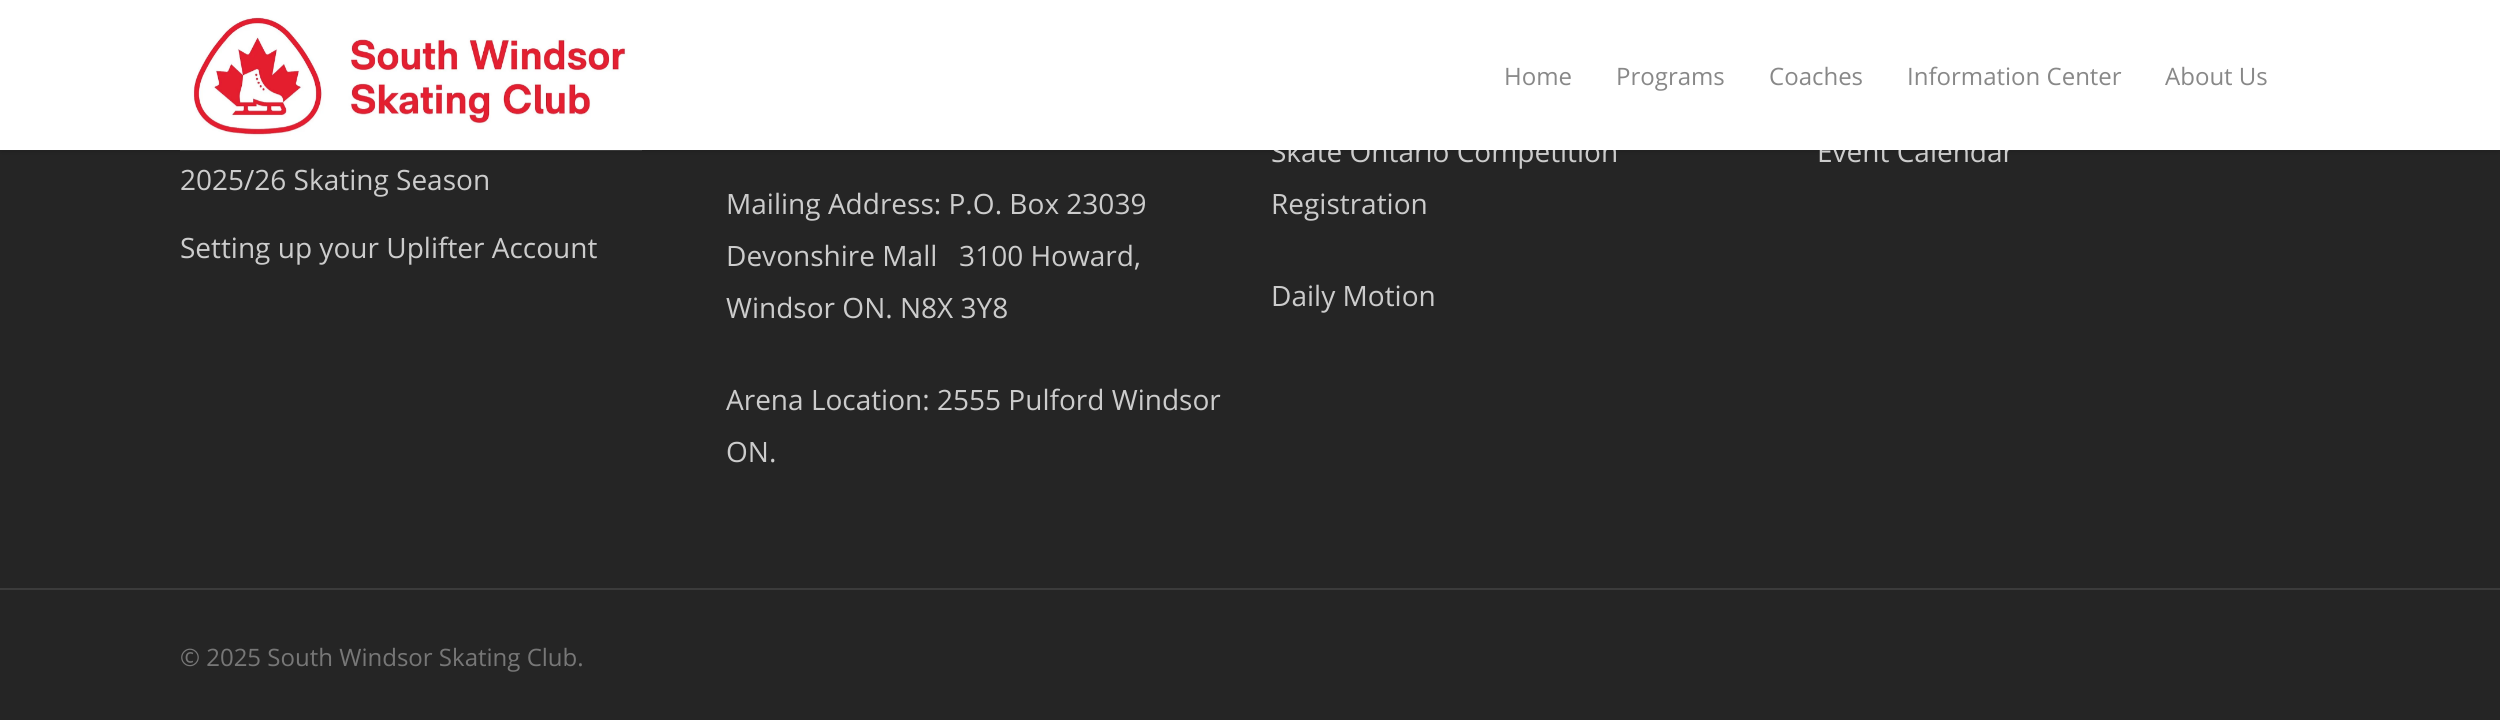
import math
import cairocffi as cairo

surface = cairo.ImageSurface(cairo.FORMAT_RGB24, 2500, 720)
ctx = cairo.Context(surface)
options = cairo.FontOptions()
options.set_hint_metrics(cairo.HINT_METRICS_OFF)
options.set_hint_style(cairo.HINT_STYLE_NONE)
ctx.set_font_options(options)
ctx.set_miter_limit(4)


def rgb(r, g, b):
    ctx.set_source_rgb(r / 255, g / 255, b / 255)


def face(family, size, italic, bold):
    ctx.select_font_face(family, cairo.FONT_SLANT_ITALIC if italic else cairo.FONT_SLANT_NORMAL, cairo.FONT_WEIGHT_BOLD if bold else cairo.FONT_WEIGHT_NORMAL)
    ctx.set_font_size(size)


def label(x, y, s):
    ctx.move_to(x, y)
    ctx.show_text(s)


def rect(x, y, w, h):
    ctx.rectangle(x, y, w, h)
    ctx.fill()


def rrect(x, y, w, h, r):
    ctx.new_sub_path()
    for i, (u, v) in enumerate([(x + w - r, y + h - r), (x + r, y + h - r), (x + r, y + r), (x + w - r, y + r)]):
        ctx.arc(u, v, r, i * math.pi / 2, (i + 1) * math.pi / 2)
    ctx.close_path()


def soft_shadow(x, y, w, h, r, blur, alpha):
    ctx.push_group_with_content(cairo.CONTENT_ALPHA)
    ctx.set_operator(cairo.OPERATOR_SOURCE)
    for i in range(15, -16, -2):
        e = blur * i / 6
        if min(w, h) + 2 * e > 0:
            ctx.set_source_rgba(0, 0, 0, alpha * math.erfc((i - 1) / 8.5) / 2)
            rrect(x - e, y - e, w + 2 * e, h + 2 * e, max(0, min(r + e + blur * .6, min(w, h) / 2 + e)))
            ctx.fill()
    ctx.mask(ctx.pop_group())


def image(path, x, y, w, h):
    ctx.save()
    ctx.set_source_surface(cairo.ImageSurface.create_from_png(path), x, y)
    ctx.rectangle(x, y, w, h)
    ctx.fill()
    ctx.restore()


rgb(37, 37, 37)
ctx.paint()
rgb(0, 0, 0)
soft_shadow(0, 0, 2500, 150, 0, 3, 0.22)
face('Open Sans', 28, 0, 0)
rgb(204, 204, 204)
label(1271, 162, 'Skate Ontario Competition')
label(1817, 162, 'Event Calendar')
rgb(255, 255, 255)
rect(0, 0, 2500, 150)
image('image0.png', 180, 17, 462, 134)
face('Open Sans', 24, 0, 0)
rgb(136, 136, 136)
label(1504, 85, 'Home')
label(1616, 85, 'Programs')
label(1769, 85, 'Coaches')
label(1907, 85, 'Information Center')
label(2165, 85, 'About Us')
face('Open Sans', 28, 0, 0)
rgb(204, 204, 204)
label(1271, 214, 'Registration')
label(1271, 306, 'Daily Motion')
label(180, 190, '2025/26 Skating Season')
label(180, 258, 'Setting up your Uplifter Account')
label(726, 214, 'Mailing Address: P.O. Box 23039')
label(726, 266, 'Devonshire Mall   3100 Howard,')
label(726, 318, 'Windsor ON. N8X 3Y8')
label(726, 410, 'Arena Location: 2555 Pulford Windsor')
label(726, 462, 'ON.')
rgb(59, 59, 59)
rect(0, 588, 2500, 2)
face('Open Sans', 24, 0, 0)
rgb(119, 119, 119)
label(180, 666, '© 2025 South Windsor Skating Club.')
surface.write_to_png('render.png')
